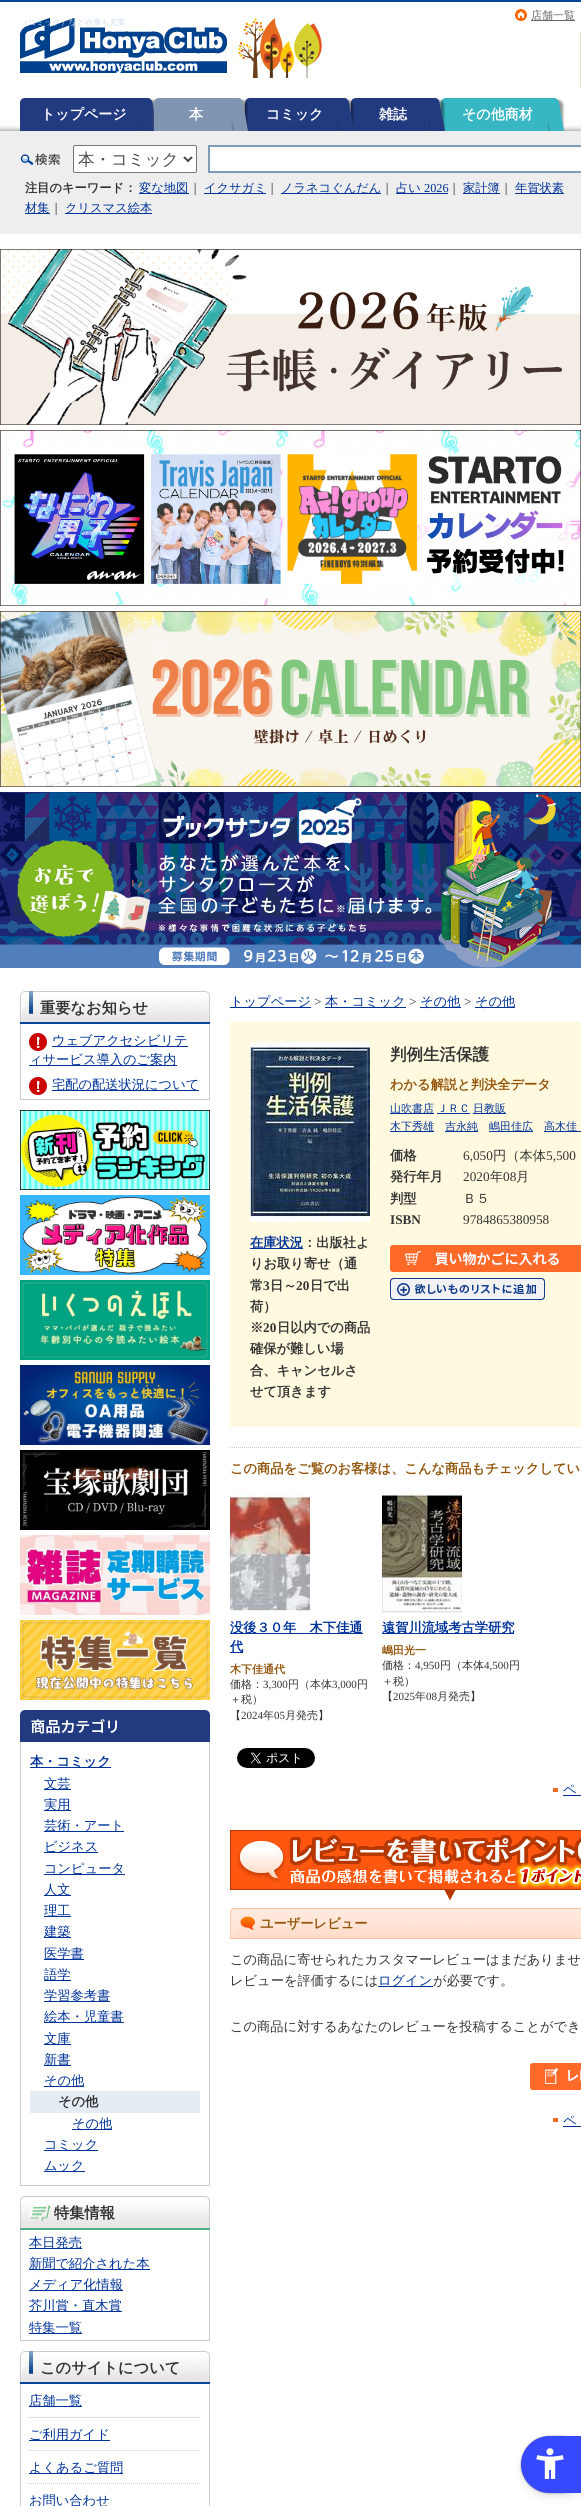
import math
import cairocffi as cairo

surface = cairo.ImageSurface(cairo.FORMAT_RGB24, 581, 2506)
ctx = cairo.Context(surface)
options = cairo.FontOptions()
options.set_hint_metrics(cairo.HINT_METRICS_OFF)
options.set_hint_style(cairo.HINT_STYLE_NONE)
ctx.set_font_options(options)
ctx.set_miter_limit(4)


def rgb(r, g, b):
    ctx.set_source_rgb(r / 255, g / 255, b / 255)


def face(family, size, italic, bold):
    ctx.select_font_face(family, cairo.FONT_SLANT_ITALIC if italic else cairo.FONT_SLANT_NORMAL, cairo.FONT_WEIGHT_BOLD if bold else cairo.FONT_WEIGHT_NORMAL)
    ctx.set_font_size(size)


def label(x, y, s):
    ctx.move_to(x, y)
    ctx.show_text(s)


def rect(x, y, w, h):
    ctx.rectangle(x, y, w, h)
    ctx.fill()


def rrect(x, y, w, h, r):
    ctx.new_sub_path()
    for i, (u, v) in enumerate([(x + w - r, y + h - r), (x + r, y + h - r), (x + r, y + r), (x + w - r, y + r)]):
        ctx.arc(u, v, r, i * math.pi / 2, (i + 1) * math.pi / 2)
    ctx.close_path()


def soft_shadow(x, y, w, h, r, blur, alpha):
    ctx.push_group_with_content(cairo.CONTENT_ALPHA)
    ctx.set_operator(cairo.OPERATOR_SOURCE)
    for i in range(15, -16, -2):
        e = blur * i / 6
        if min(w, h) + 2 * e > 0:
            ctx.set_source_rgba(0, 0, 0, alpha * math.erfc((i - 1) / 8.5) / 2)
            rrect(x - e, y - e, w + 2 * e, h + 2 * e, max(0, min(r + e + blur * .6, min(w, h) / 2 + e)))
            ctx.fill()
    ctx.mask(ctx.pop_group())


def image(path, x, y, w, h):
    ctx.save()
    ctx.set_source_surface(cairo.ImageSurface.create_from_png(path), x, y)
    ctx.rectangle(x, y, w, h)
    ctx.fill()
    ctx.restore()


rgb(255, 255, 255)
ctx.paint()
rgb(0, 70, 151)
rect(0, 0, 581, 2)
image('image0.png', 515, 9, 12, 12)
rgb(102, 102, 102)
rect(531, 20, 44, 1)
face('WenQuanYi Zen Hei Medium', 11, 0, 0)
label(531, 19, '店舗一覧')
image('image1.png', 580, 32, 1, 56)
image('image2.png', 580, 30, 1, 2)
image('image3.png', 20, 18, 302, 60)
face('WenQuanYi Zen Hei Medium', 8, 0, 0)
rgb(207, 219, 234)
label(20, 25, '（コミック）など在庫も充実')
image('image4.png', 20, 991, 185, 31)
rgb(0, 70, 151)
rect(20, 1022, 190, 2)
image('image5.png', 205, 991, 5, 31)
face('WenQuanYi Zen Hei', 15.25, 0, 1)
rgb(51, 51, 51)
label(40, 1013, '重要なお知らせ')
rgb(204, 204, 204)
rect(209, 1024, 1, 76)
rect(20, 1099, 190, 1)
rect(20, 1024, 1, 76)
image('image6.png', 29, 1033, 18, 18)
rgb(0, 51, 153)
rect(52, 1046, 136, 1)
face('WenQuanYi Zen Hei Medium', 13.25, 0, 0)
label(52, 1045, 'ウェブアクセシビリテ')
rect(29, 1065, 148, 1)
label(29, 1064, 'ィサービス導入のご案内')
image('image6.png', 29, 1077, 18, 18)
rect(52, 1090, 147, 1)
label(52, 1089, '宅配の配送状況について')
image('image7.png', 20, 1110, 190, 80)
image('image8.png', 20, 1195, 190, 80)
image('image9.png', 20, 1280, 190, 80)
image('image10.png', 20, 1365, 190, 80)
image('image11.png', 20, 1450, 190, 80)
image('image12.png', 20, 1535, 190, 80)
image('image13.png', 20, 1620, 190, 80)
image('image14.png', 20, 1710, 190, 32)
rgb(204, 204, 204)
rect(209, 1742, 1, 444)
rect(20, 2185, 190, 1)
rect(20, 1742, 1, 444)
rgb(0, 51, 153)
rect(30, 1767, 81, 1)
face('WenQuanYi Zen Hei', 13.25, 0, 1)
label(30, 1766, '本・コミック')
rect(44, 1789, 27, 1)
face('WenQuanYi Zen Hei Medium', 13.25, 0, 0)
label(44, 1788, '文芸')
rect(44, 1810, 27, 1)
label(44, 1809, '実用')
rect(44, 1831, 80, 1)
label(44, 1830, '芸術・アート')
rect(44, 1852, 54, 1)
label(44, 1851, 'ビジネス')
rect(44, 1874, 81, 1)
label(44, 1873, 'コンピュータ')
rect(44, 1895, 27, 1)
label(44, 1894, '人文')
rect(44, 1916, 27, 1)
label(44, 1915, '理工')
rect(44, 1937, 27, 1)
label(44, 1936, '建築')
rect(44, 1959, 40, 1)
label(44, 1958, '医学書')
rect(44, 1980, 27, 1)
label(44, 1979, '語学')
rect(44, 2001, 66, 1)
label(44, 2000, '学習参考書')
rect(44, 2022, 80, 1)
label(44, 2021, '絵本・児童書')
rect(44, 2044, 27, 1)
label(44, 2043, '文庫')
rect(44, 2065, 27, 1)
label(44, 2064, '新書')
rect(44, 2086, 40, 1)
label(44, 2085, 'その他')
rgb(229, 236, 244)
rect(30, 2091, 170, 22)
face('WenQuanYi Zen Hei', 13.25, 0, 1)
rgb(51, 51, 51)
label(58, 2106, 'その他')
rgb(0, 51, 153)
rect(72, 2129, 40, 1)
face('WenQuanYi Zen Hei Medium', 13.25, 0, 0)
label(72, 2128, 'その他')
rect(44, 2150, 54, 1)
label(44, 2149, 'コミック')
rect(44, 2171, 41, 1)
label(44, 2170, 'ムック')
image('image15.png', 20, 2196, 185, 32)
rgb(83, 175, 134)
rect(20, 2228, 190, 2)
image('image16.png', 205, 2196, 5, 32)
face('WenQuanYi Zen Hei', 15.25, 0, 1)
rgb(51, 51, 51)
label(54, 2218, '特集情報')
rgb(204, 204, 204)
rect(209, 2230, 1, 111)
rect(20, 2340, 190, 1)
rect(20, 2230, 1, 111)
rgb(0, 51, 153)
rect(29, 2248, 53, 1)
face('WenQuanYi Zen Hei Medium', 13.25, 0, 0)
label(29, 2247, '本日発売')
rect(29, 2269, 121, 1)
label(29, 2268, '新聞で紹介された本')
rect(29, 2290, 94, 1)
label(29, 2289, 'メディア化情報')
rect(29, 2311, 93, 1)
label(29, 2310, '芥川賞・直木賞')
rect(29, 2333, 53, 1)
label(29, 2332, '特集一覧')
image('image4.png', 20, 2351, 185, 31)
rgb(0, 70, 151)
rect(20, 2382, 190, 2)
image('image5.png', 205, 2351, 5, 31)
face('WenQuanYi Zen Hei', 15.25, 0, 1)
rgb(51, 51, 51)
label(40, 2373, 'このサイトについて')
rgb(204, 204, 204)
rect(209, 2384, 1, 122)
rect(20, 2384, 1, 122)
image('image17.png', 29, 2417, 171, 1)
rgb(0, 51, 153)
rect(29, 2406, 53, 1)
face('WenQuanYi Zen Hei Medium', 13.25, 0, 0)
label(29, 2405, '店舗一覧')
image('image17.png', 29, 2450, 171, 1)
rect(29, 2440, 81, 1)
label(29, 2439, 'ご利用ガイド')
image('image17.png', 29, 2483, 171, 1)
rect(29, 2473, 94, 1)
label(29, 2472, 'よくあるご質問')
label(29, 2505, 'お問い合わせ')
rect(230, 1007, 81, 1)
label(230, 1006, 'トップページ')
face('Liberation Serif', 13.25, 0, 0)
rgb(51, 51, 51)
label(314, 1006, '>')
rgb(0, 51, 153)
rect(325, 1007, 81, 1)
face('WenQuanYi Zen Hei Medium', 13.25, 0, 0)
label(325, 1006, '本・コミック')
face('Liberation Serif', 13.25, 0, 0)
rgb(51, 51, 51)
label(409, 1006, '>')
rgb(0, 51, 153)
rect(420, 1007, 41, 1)
face('WenQuanYi Zen Hei Medium', 13.25, 0, 0)
label(420, 1006, 'その他')
face('Liberation Serif', 13.25, 0, 0)
rgb(51, 51, 51)
label(464, 1006, '>')
rgb(0, 51, 153)
rect(475, 1007, 40, 1)
face('WenQuanYi Zen Hei Medium', 13.25, 0, 0)
label(475, 1006, 'その他')
rgb(255, 249, 223)
rect(230, 1022, 351, 405)
face('WenQuanYi Zen Hei', 16.5, 0, 1)
rgb(51, 51, 51)
label(390, 1060, '判例生活保護')
face('WenQuanYi Zen Hei', 13.25, 0, 1)
rgb(146, 83, 8)
label(390, 1089, 'わかる解説と判決全データ')
rgb(0, 51, 153)
rect(390, 1113, 44, 1)
face('WenQuanYi Zen Hei Medium', 11, 0, 0)
label(390, 1112, '山吹書店')
label(437, 1112, 'ＪＲＣ')
rect(437, 1113, 33, 1)
rect(473, 1113, 33, 1)
label(473, 1112, '日教販')
rect(390, 1131, 44, 1)
label(390, 1130, '木下秀雄')
rect(445, 1131, 33, 1)
label(445, 1130, '吉永純')
rect(489, 1131, 44, 1)
label(489, 1130, '嶋田佳広')
rect(544, 1131, 37, 1)
label(544, 1130, '高木佳')
face('WenQuanYi Zen Hei', 13.25, 0, 1)
rgb(51, 51, 51)
label(390, 1160, '価格')
face('Liberation Serif', 13.25, 0, 0)
label(463, 1160, '6,050')
face('WenQuanYi Zen Hei Medium', 13.25, 0, 0)
label(493, 1160, '円（本体')
face('Liberation Serif', 13.25, 0, 0)
label(546, 1160, '5,500')
face('WenQuanYi Zen Hei', 13.25, 0, 1)
label(390, 1181, '発行年月')
face('Liberation Serif', 13.25, 0, 0)
label(463, 1181, '2020')
face('WenQuanYi Zen Hei Medium', 13.25, 0, 0)
label(490, 1181, '年')
face('Liberation Serif', 13.25, 0, 0)
label(503, 1181, '08')
face('WenQuanYi Zen Hei Medium', 13.25, 0, 0)
label(516, 1181, '月')
face('WenQuanYi Zen Hei', 13.25, 0, 1)
label(390, 1203, '判型')
face('WenQuanYi Zen Hei Medium', 13.25, 0, 0)
label(463, 1203, 'Ｂ５')
face('Liberation Serif', 13.25, 0, 1)
label(390, 1224, 'ISBN')
face('Liberation Serif', 13.25, 0, 0)
label(463, 1224, '9784865380958')
image('image18.png', 390, 1245, 191, 27)
image('image19.png', 390, 1278, 155, 22)
image('image20.png', 250, 1042, 120, 180)
rgb(0, 51, 153)
rect(250, 1248, 53, 1)
face('WenQuanYi Zen Hei', 13.25, 0, 1)
label(250, 1247, '在庫状況')
rgb(51, 51, 51)
label(303, 1247, '：出版社よ')
label(250, 1268, 'りお取り寄せ（通')
label(250, 1290, '常')
face('Liberation Serif', 13.25, 0, 1)
label(263, 1290, '3')
face('WenQuanYi Zen Hei', 13.25, 0, 1)
label(270, 1290, '日～')
face('Liberation Serif', 13.25, 0, 1)
label(296, 1290, '20')
face('WenQuanYi Zen Hei', 13.25, 0, 1)
label(310, 1290, '日で出')
label(250, 1311, '荷）')
label(250, 1332, '※')
face('Liberation Serif', 13.25, 0, 1)
label(263, 1332, '20')
face('WenQuanYi Zen Hei', 13.25, 0, 1)
label(277, 1332, '日以内での商品')
label(250, 1353, '確保が難しい場')
label(250, 1375, '合、キャンセルさ')
label(250, 1396, 'せて頂きます')
image('image21.png', 230, 1447, 351, 1)
rgb(146, 83, 8)
label(230, 1473, 'この商品をご覧のお客様は、こんな商品もチェックしてい')
image('image22.png', 230, 1494, 80, 120)
rgb(0, 51, 153)
rect(230, 1633, 133, 1)
label(230, 1632, '没後３０年　木下佳通')
rect(230, 1652, 13, 1)
label(230, 1651, '代')
face('WenQuanYi Zen Hei', 11, 0, 1)
rgb(146, 83, 8)
label(230, 1673, '木下佳通代')
face('WenQuanYi Zen Hei Medium', 11, 0, 0)
rgb(51, 51, 51)
label(230, 1688, '価格：')
face('Liberation Serif', 11, 0, 0)
label(263, 1688, '3,300')
face('WenQuanYi Zen Hei Medium', 11, 0, 0)
label(288, 1688, '円（本体')
face('Liberation Serif', 11, 0, 0)
label(332, 1688, '3,000')
face('WenQuanYi Zen Hei Medium', 11, 0, 0)
label(357, 1688, '円')
label(230, 1703, '＋税）')
label(230, 1719, '【')
face('Liberation Serif', 11, 0, 0)
label(241, 1719, '2024')
face('WenQuanYi Zen Hei Medium', 11, 0, 0)
label(263, 1719, '年')
face('Liberation Serif', 11, 0, 0)
label(274, 1719, '05')
face('WenQuanYi Zen Hei Medium', 11, 0, 0)
label(285, 1719, '月発売】')
image('image23.png', 382, 1494, 80, 120)
rgb(0, 51, 153)
rect(382, 1633, 132, 1)
face('WenQuanYi Zen Hei', 13.25, 0, 1)
label(382, 1632, '遠賀川流域考古学研究')
face('WenQuanYi Zen Hei', 11, 0, 1)
rgb(146, 83, 8)
label(382, 1654, '嶋田光一')
face('WenQuanYi Zen Hei Medium', 11, 0, 0)
rgb(51, 51, 51)
label(382, 1669, '価格：')
face('Liberation Serif', 11, 0, 0)
label(415, 1669, '4,950')
face('WenQuanYi Zen Hei Medium', 11, 0, 0)
label(440, 1669, '円（本体')
face('Liberation Serif', 11, 0, 0)
label(484, 1669, '4,500')
face('WenQuanYi Zen Hei Medium', 11, 0, 0)
label(509, 1669, '円')
label(382, 1685, '＋税）')
label(382, 1700, '【')
face('Liberation Serif', 11, 0, 0)
label(393, 1700, '2025')
face('WenQuanYi Zen Hei Medium', 11, 0, 0)
label(415, 1700, '年')
face('Liberation Serif', 11, 0, 0)
label(426, 1700, '08')
face('WenQuanYi Zen Hei Medium', 11, 0, 0)
label(437, 1700, '月発売】')
image('image24.png', 237, 1748, 78, 20)
rgb(237, 106, 36)
rect(553, 1788, 5, 4)
face('WenQuanYi Zen Hei Medium', 13.25, 0, 0)
rgb(0, 51, 153)
label(563, 1794, 'ペ')
rect(563, 1795, 18, 1)
image('image25.png', 230, 1830, 351, 70)
image('image26.png', 230, 1908, 351, 30)
rgb(255, 196, 164)
rect(230, 1938, 351, 1)
face('WenQuanYi Zen Hei', 13.25, 0, 1)
rgb(146, 83, 8)
label(260, 1928, 'ユーザーレビュー')
face('WenQuanYi Zen Hei Medium', 13.25, 0, 0)
rgb(51, 51, 51)
label(230, 1964, 'この商品に寄せられたカスタマーレビューはまだありませ')
label(230, 1985, 'レビューを評価するには')
rgb(0, 51, 153)
rect(378, 1986, 55, 1)
label(378, 1985, 'ログイン')
rgb(51, 51, 51)
label(433, 1985, 'が必要です。')
label(230, 2031, 'この商品に対するあなたのレビューを投稿することができ')
image('image27.png', 530, 2063, 51, 27)
rgb(237, 106, 36)
rect(553, 2118, 5, 4)
rgb(0, 51, 153)
label(563, 2125, 'ペ')
rect(563, 2126, 18, 1)
rgb(0, 0, 0)
soft_shadow(0, 131, 581, 48, 0, 3, 0.6)
rgb(238, 238, 238)
rect(0, 131, 581, 103)
ctx.save()
ctx.rectangle(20, 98, 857, 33)
ctx.clip()
rgb(102, 102, 102)
soft_shadow(20, 100, 128, 33, 5, 1, 1)
ctx.restore()
rgb(34, 59, 128)
ctx.new_path()
ctx.move_to(25, 98)
ctx.line_to(148, 98)
ctx.line_to(148, 131)
ctx.line_to(20, 131)
ctx.line_to(20, 103)
ctx.curve_to(20, 100, 22, 98, 25, 98)
ctx.close_path()
ctx.fill()
face('WenQuanYi Zen Hei', 14, 0, 1)
rgb(255, 255, 255)
label(41, 119, 'トップページ')
ctx.save()
ctx.rectangle(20, 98, 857, 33)
ctx.clip()
rgb(0, 0, 0)
soft_shadow(143, 100, 14, 33, 5, 1, 0.4)
ctx.restore()
ctx.save()
ctx.rectangle(20, 98, 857, 33)
ctx.clip()
rgb(34, 59, 128)
ctx.new_path()
ctx.move_to(137.5, 97.5)
ctx.line_to(146.5, 97.5)
ctx.curve_to(149.5, 97.5, 152, 100, 152.5, 102.5)
ctx.line_to(157.5, 131)
ctx.line_to(143.5, 131)
ctx.close_path()
ctx.fill()
ctx.restore()
ctx.save()
ctx.rectangle(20, 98, 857, 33)
ctx.clip()
rgb(102, 102, 102)
soft_shadow(154, 100, 84, 33, 5, 1, 1)
ctx.restore()
rgb(127, 149, 178)
ctx.new_path()
ctx.move_to(159, 98)
ctx.line_to(238, 98)
ctx.line_to(238, 131)
ctx.line_to(154, 131)
ctx.line_to(154, 103)
ctx.curve_to(154, 100, 156, 98, 159, 98)
ctx.close_path()
ctx.fill()
rgb(255, 255, 255)
label(189, 119, '本')
ctx.save()
ctx.rectangle(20, 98, 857, 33)
ctx.clip()
rgb(102, 102, 102)
soft_shadow(245, 100, 99, 33, 5, 1, 1)
ctx.restore()
rgb(34, 59, 128)
ctx.new_path()
ctx.move_to(250, 98)
ctx.line_to(344, 98)
ctx.line_to(344, 131)
ctx.line_to(245, 131)
ctx.line_to(245, 103)
ctx.curve_to(245, 100, 247, 98, 250, 98)
ctx.close_path()
ctx.fill()
ctx.save()
ctx.rectangle(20, 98, 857, 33)
ctx.clip()
rgb(0, 0, 0)
soft_shadow(233, 100, 14, 33, 5, 1, 0.4)
ctx.restore()
ctx.save()
ctx.rectangle(20, 98, 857, 33)
ctx.clip()
rgb(127, 149, 178)
ctx.new_path()
ctx.move_to(228.5, 97.5)
ctx.line_to(237.5, 97.5)
ctx.curve_to(240, 97.5, 242.5, 100, 243, 102.5)
ctx.line_to(248, 131)
ctx.line_to(234, 131)
ctx.close_path()
ctx.fill()
ctx.restore()
rgb(255, 255, 255)
label(266, 119, 'コミック')
ctx.save()
ctx.rectangle(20, 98, 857, 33)
ctx.clip()
rgb(102, 102, 102)
soft_shadow(351, 100, 84, 33, 5, 1, 1)
ctx.restore()
rgb(34, 59, 128)
ctx.new_path()
ctx.move_to(356, 98)
ctx.line_to(435, 98)
ctx.line_to(435, 131)
ctx.line_to(351, 131)
ctx.line_to(351, 103)
ctx.curve_to(351, 100, 353, 98, 356, 98)
ctx.close_path()
ctx.fill()
ctx.save()
ctx.rectangle(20, 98, 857, 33)
ctx.clip()
rgb(0, 0, 0)
soft_shadow(339, 100, 14, 33, 5, 1, 0.4)
ctx.restore()
ctx.save()
ctx.rectangle(20, 98, 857, 33)
ctx.clip()
ctx.new_path()
ctx.move_to(334, 97.5)
ctx.line_to(343, 97.5)
ctx.curve_to(346, 97.5, 348.5, 100, 349, 102.5)
ctx.line_to(354, 131)
ctx.line_to(340, 131)
ctx.close_path()
ctx.fill()
ctx.restore()
rgb(255, 255, 255)
label(379, 119, '雑誌')
ctx.save()
ctx.rectangle(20, 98, 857, 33)
ctx.clip()
rgb(102, 102, 102)
soft_shadow(441, 100, 113, 33, 5, 1, 1)
ctx.restore()
rgb(55, 183, 195)
ctx.new_path()
ctx.move_to(446, 98)
ctx.line_to(554, 98)
ctx.line_to(554, 131)
ctx.line_to(441, 131)
ctx.line_to(441, 103)
ctx.curve_to(441, 100, 443, 98, 446, 98)
ctx.close_path()
ctx.fill()
ctx.save()
ctx.rectangle(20, 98, 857, 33)
ctx.clip()
rgb(0, 0, 0)
soft_shadow(430, 100, 14, 33, 5, 1, 0.4)
ctx.restore()
ctx.save()
ctx.rectangle(20, 98, 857, 33)
ctx.clip()
rgb(34, 59, 128)
ctx.new_path()
ctx.move_to(425, 97.5)
ctx.line_to(434, 97.5)
ctx.curve_to(436.5, 97.5, 439.5, 100, 439.5, 102.5)
ctx.line_to(445, 131)
ctx.line_to(431, 131)
ctx.close_path()
ctx.fill()
ctx.restore()
rgb(255, 255, 255)
label(462, 119, 'その他商材')
ctx.save()
ctx.rectangle(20, 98, 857, 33)
ctx.clip()
rgb(0, 0, 0)
soft_shadow(549, 100, 14, 33, 5, 1, 0.4)
ctx.restore()
ctx.save()
ctx.rectangle(20, 98, 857, 33)
ctx.clip()
rgb(55, 183, 195)
ctx.new_path()
ctx.move_to(544, 97.5)
ctx.line_to(553, 97.5)
ctx.curve_to(556, 97.5, 558.5, 100, 559, 102.5)
ctx.line_to(564, 131)
ctx.line_to(550, 131)
ctx.close_path()
ctx.fill()
ctx.restore()
image('image28.png', 20, 153, 40, 12)
rrect(73.5, 145.5, 123, 27, 1.5)
ctx.fill_preserve()
rgb(118, 118, 118)
ctx.set_line_width(1)
ctx.stroke()
ctx.new_path()
ctx.move_to(184, 157)
ctx.line_to(188, 161)
ctx.line_to(192, 157)
rgb(73, 73, 73)
ctx.set_line_width(2)
ctx.stroke()
face('WenQuanYi Zen Hei Medium', 16.5, 0, 0)
label(78, 165, '本・コミック')
rgb(255, 255, 255)
ctx.rectangle(209, 146, 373, 26)
ctx.fill_preserve()
rgb(127, 157, 185)
ctx.stroke()
face('WenQuanYi Zen Hei', 12.25, 0, 1)
rgb(51, 51, 51)
label(25, 192, '注目のキーワード：')
rgb(0, 51, 153)
rect(139, 193, 50, 1)
face('WenQuanYi Zen Hei Medium', 12.25, 0, 0)
label(139, 192, '変な地図')
rgb(51, 51, 51)
label(189, 192, '｜')
rgb(0, 51, 153)
rect(204, 193, 62, 1)
label(204, 192, 'イクサガミ')
rgb(51, 51, 51)
label(266, 192, '｜')
rgb(0, 51, 153)
rect(281, 193, 100, 1)
label(281, 192, 'ノラネコぐんだん')
rgb(51, 51, 51)
label(381, 192, '｜')
rgb(0, 51, 153)
rect(396, 193, 52, 1)
label(396, 192, '占い')
face('Liberation Serif', 12.25, 0, 0)
label(424, 192, '2026')
face('WenQuanYi Zen Hei Medium', 12.25, 0, 0)
rgb(51, 51, 51)
label(448, 192, '｜')
rgb(0, 51, 153)
rect(463, 193, 37, 1)
label(463, 192, '家計簿')
rgb(51, 51, 51)
label(500, 192, '｜')
rgb(0, 51, 153)
rect(515, 193, 49, 1)
label(515, 192, '年賀状素')
rect(25, 213, 25, 1)
label(25, 212, '材集')
rgb(51, 51, 51)
label(50, 212, '｜')
rgb(0, 51, 153)
rect(65, 213, 87, 1)
label(65, 212, 'クリスマス絵本')
image('image29.png', 0, 249, 581, 176)
image('image30.png', 0, 430, 581, 176)
image('image31.png', 0, 611, 581, 176)
image('image32.png', 0, 792, 581, 176)
rgb(0, 0, 0)
soft_shadow(521, 2440, 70, 57, 28.5, 4, 0.09)
soft_shadow(521, 2437, 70, 57, 28.5, 1.5, 0.09)
soft_shadow(521, 2436, 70, 57, 28.5, 0.5, 0.4)
rgb(54, 73, 255)
ctx.new_path()
ctx.move_to(549.5, 2436)
ctx.line_to(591, 2436)
ctx.line_to(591, 2493)
ctx.line_to(549.5, 2493)
ctx.curve_to(534, 2493, 521, 2480, 521, 2464.5)
ctx.curve_to(521, 2449, 534, 2436, 549.5, 2436)
ctx.close_path()
ctx.fill()
image('image33.png', 536, 2448, 28, 31)
surface.write_to_png('render.png')
